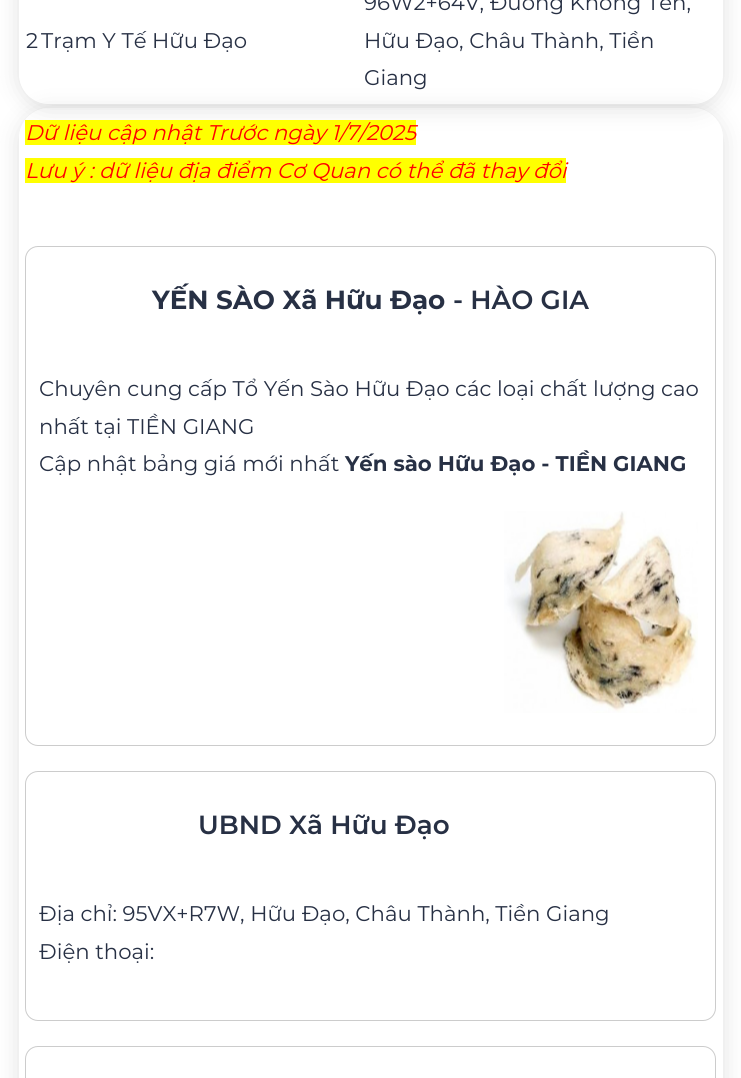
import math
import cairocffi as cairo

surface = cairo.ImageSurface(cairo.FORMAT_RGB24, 741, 1078)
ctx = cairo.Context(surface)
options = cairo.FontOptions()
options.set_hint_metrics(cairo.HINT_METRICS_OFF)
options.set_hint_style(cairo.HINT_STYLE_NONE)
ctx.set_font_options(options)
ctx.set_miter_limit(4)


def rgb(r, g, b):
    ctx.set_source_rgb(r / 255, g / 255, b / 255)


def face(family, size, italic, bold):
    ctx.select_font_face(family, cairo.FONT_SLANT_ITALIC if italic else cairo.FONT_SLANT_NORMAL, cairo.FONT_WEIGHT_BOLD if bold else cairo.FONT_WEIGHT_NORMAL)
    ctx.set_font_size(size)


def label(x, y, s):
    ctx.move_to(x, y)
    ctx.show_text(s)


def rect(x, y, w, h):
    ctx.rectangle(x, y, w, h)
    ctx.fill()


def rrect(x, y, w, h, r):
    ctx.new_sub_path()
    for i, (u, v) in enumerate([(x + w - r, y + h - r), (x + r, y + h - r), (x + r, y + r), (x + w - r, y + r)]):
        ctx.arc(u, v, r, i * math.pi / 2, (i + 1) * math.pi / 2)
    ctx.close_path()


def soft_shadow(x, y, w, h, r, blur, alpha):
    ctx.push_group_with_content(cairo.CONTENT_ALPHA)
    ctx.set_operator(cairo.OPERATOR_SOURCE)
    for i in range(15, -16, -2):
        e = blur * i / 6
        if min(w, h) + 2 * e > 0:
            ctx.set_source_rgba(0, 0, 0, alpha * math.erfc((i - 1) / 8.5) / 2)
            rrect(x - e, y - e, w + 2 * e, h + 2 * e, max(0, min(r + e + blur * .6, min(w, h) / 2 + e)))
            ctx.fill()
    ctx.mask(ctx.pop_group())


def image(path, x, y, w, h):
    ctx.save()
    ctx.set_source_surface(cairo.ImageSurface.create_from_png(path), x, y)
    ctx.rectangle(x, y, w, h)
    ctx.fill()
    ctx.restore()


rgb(255, 255, 255)
ctx.paint()
ctx.save()
ctx.set_fill_rule(cairo.FILL_RULE_EVEN_ODD)
ctx.new_path()
ctx.move_to(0, 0)
ctx.line_to(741, 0)
ctx.line_to(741, 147)
ctx.line_to(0, 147)
ctx.close_path()
ctx.move_to(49, -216)
ctx.line_to(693, -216)
ctx.curve_to(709.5, -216, 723, -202.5, 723, -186)
ctx.line_to(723, 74)
ctx.curve_to(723, 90.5, 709.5, 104, 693, 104)
ctx.line_to(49, 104)
ctx.curve_to(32.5, 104, 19, 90.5, 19, 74)
ctx.line_to(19, -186)
ctx.curve_to(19, -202.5, 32.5, -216, 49, -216)
ctx.close_path()
ctx.clip()
rgb(0, 0, 0)
soft_shadow(19, -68, 704, 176, 30, 12.5, 0.12)
ctx.restore()
face('Montserrat', 21.25, 0, 0)
rgb(39, 48, 68)
label(26, 48, '2')
label(41, 48, 'Trạm Y Tế Hữu Đạo')
label(364, 10, '96W2+64V, Đường Không Tên,')
label(364, 48, 'Hữu Đạo, Châu Thành, Tiền')
label(364, 85, 'Giang')
ctx.save()
ctx.set_fill_rule(cairo.FILL_RULE_EVEN_ODD)
ctx.new_path()
ctx.move_to(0, 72)
ctx.line_to(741, 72)
ctx.line_to(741, 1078)
ctx.line_to(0, 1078)
ctx.close_path()
ctx.move_to(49, 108)
ctx.line_to(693, 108)
ctx.curve_to(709.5, 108, 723, 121.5, 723, 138)
ctx.line_to(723, 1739)
ctx.curve_to(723, 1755.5, 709.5, 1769, 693, 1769)
ctx.line_to(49, 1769)
ctx.curve_to(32.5, 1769, 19, 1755.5, 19, 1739)
ctx.line_to(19, 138)
ctx.curve_to(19, 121.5, 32.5, 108, 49, 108)
ctx.close_path()
ctx.clip()
rgb(0, 0, 0)
soft_shadow(19, 111, 704, 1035, 30, 12.5, 0.12)
ctx.restore()
rgb(255, 255, 0)
rect(25, 120, 391, 25)
face('Montserrat', 21.25, 1, 0)
rgb(255, 0, 0)
label(25, 140, 'Dữ liệu cập nhật Trước ngày 1/7/2025')
rgb(255, 255, 0)
rect(25, 158, 541, 25)
rgb(255, 0, 0)
label(25, 178, 'Lưu ý : dữ liệu địa điểm Cơ Quan có thể đã thay đổi')
rrect(25.5, 246.5, 690, 499, 12.5)
rgb(204, 204, 204)
ctx.set_line_width(1)
ctx.stroke()
face('Montserrat', 26.25, 0, 1)
rgb(39, 48, 68)
label(152, 309, 'YẾN SÀO Xã Hữu Đạo')
face('Montserrat SemiBold', 26.25, 0, 0)
label(453, 309, '- HÀO GIA')
face('Montserrat', 21.25, 0, 0)
label(39, 396, 'Chuyên cung cấp Tổ Yến Sào Hữu Đạo các loại chất lượng cao')
label(39, 434, 'nhất tại TIỀN GIANG')
label(39, 471, 'Cập nhật bảng giá mới nhất')
face('Montserrat', 21.25, 0, 1)
label(345, 471, 'Yến sào Hữu Đạo - TIỀN GIANG')
image('image0.png', 504, 511, 194, 202)
rrect(25.5, 771.5, 690, 249, 12.5)
rgb(204, 204, 204)
ctx.stroke()
face('Montserrat SemiBold', 26.25, 0, 0)
rgb(39, 48, 68)
label(198, 834, 'UBND Xã Hữu Đạo')
face('Montserrat', 21.25, 0, 0)
label(39, 921, 'Địa chỉ: 95VX+R7W, Hữu Đạo, Châu Thành, Tiền Giang')
label(39, 959, 'Điện thoại:')
rrect(25.5, 1046.5, 690, 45, 12.5)
rgb(204, 204, 204)
ctx.stroke()
surface.write_to_png('render.png')
